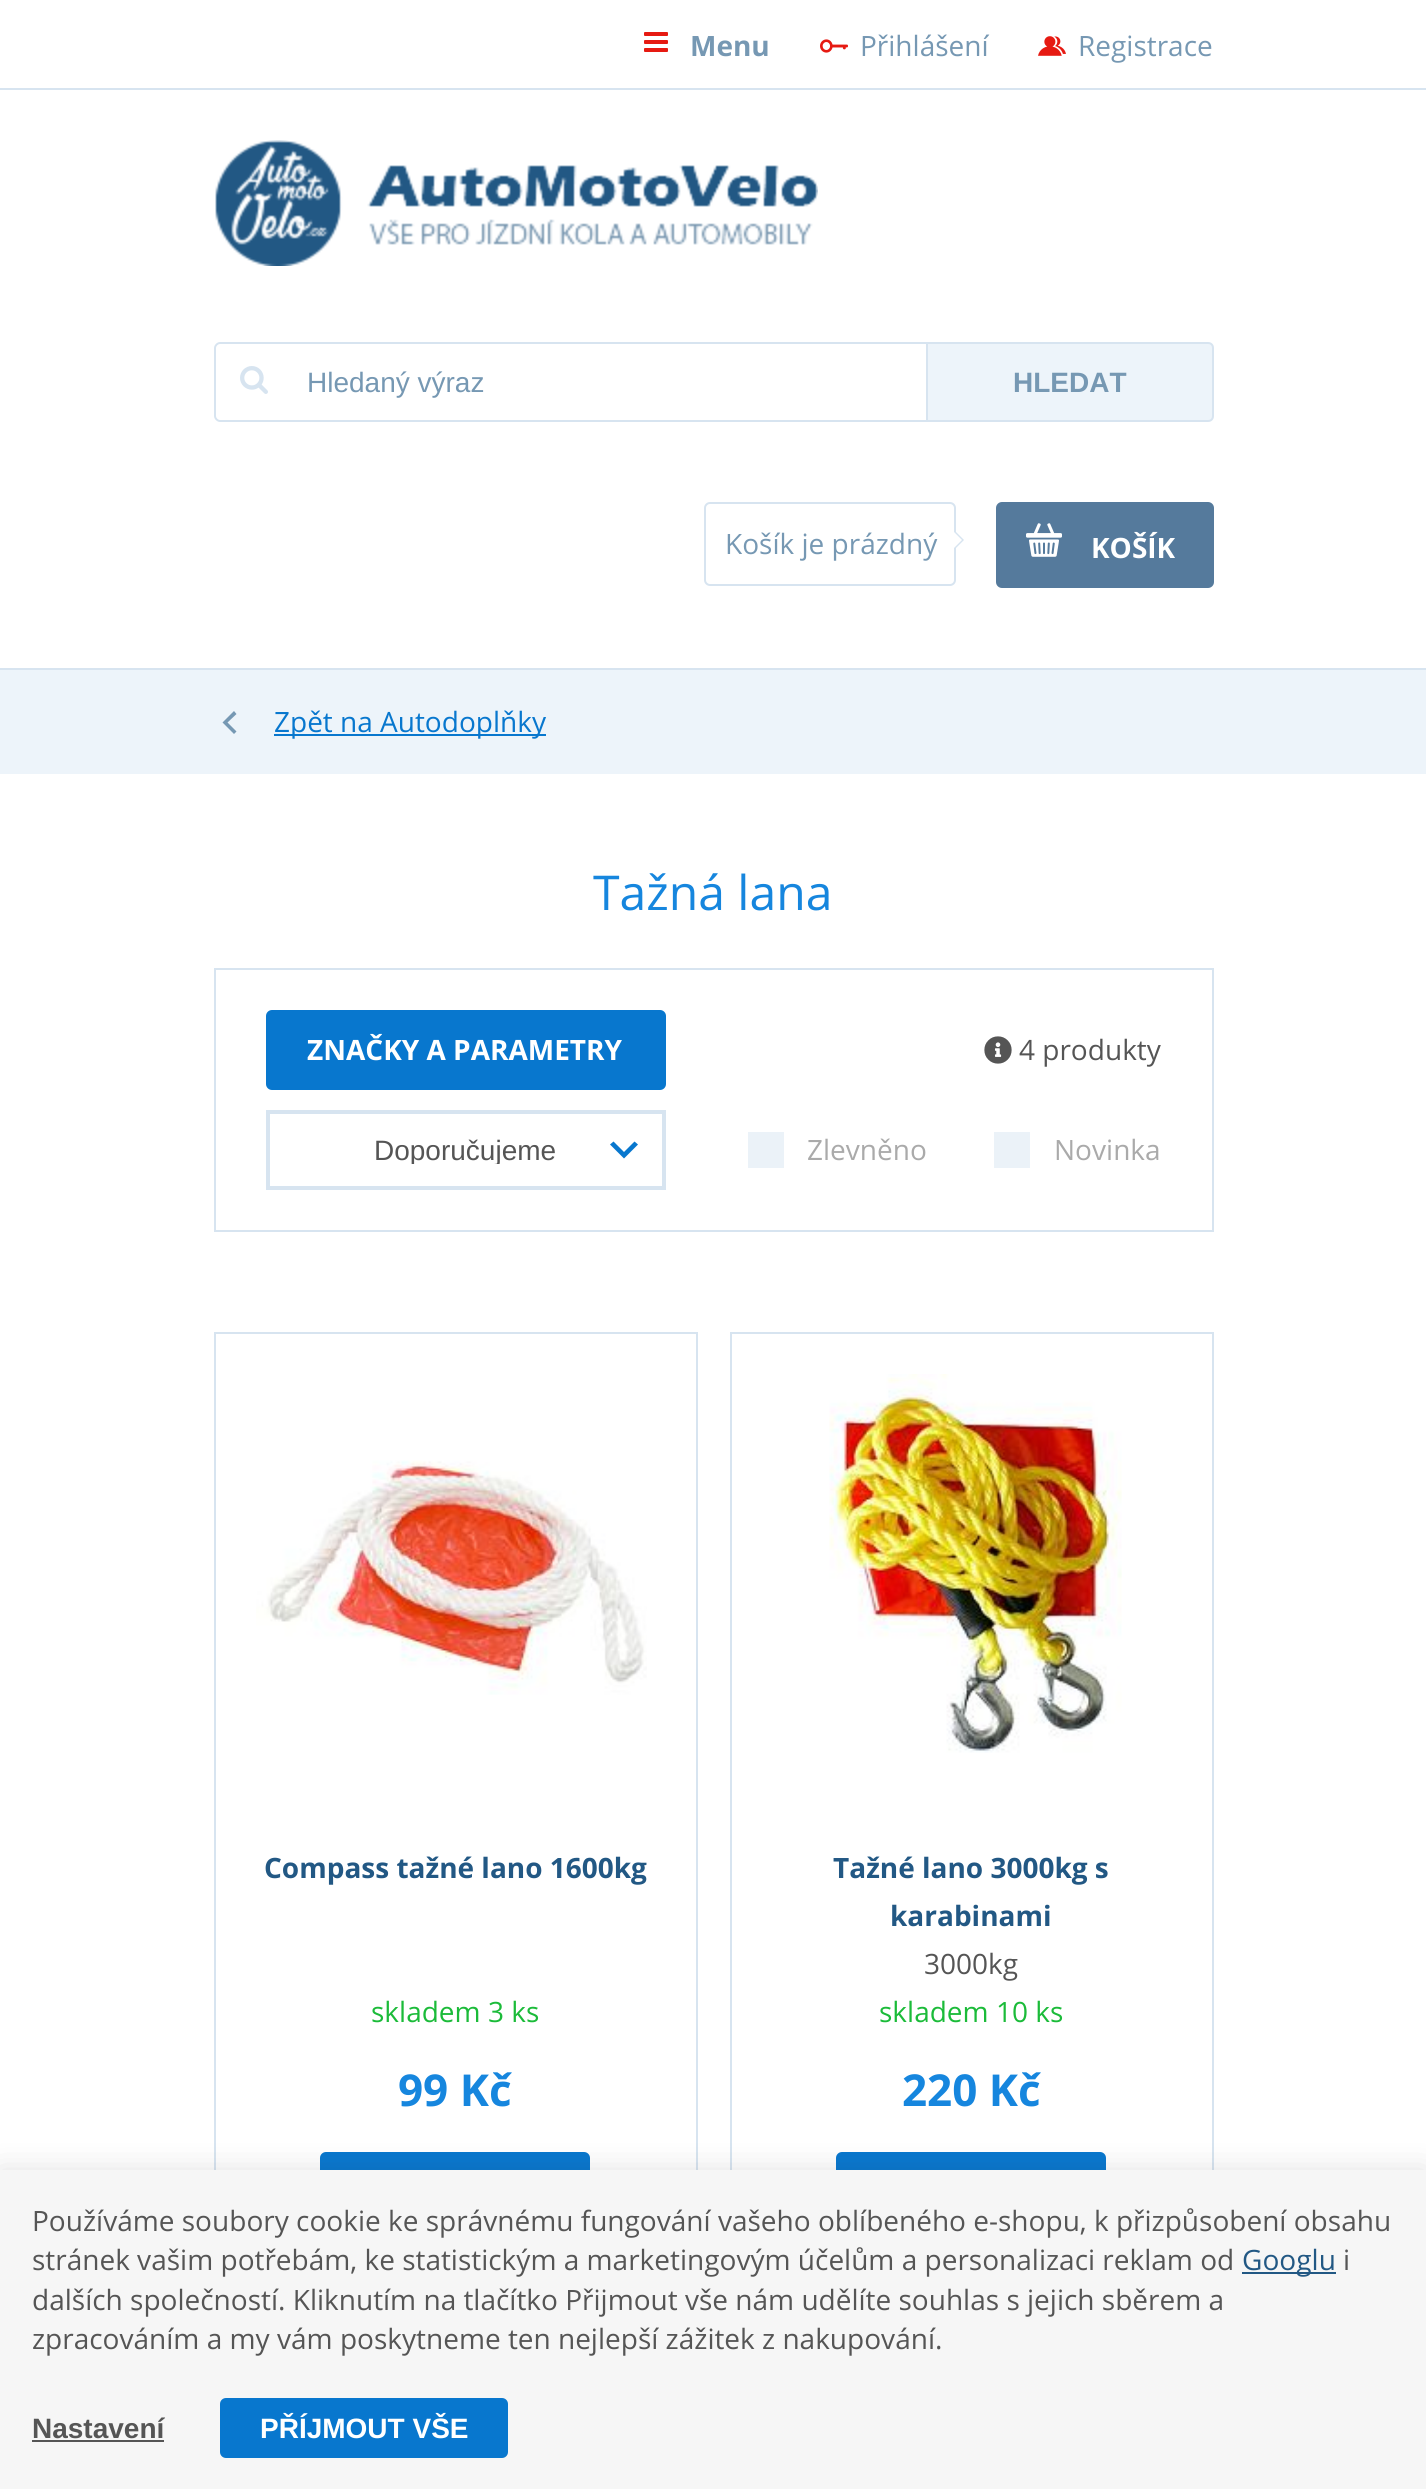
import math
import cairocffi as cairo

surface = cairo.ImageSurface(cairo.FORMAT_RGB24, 1426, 2489)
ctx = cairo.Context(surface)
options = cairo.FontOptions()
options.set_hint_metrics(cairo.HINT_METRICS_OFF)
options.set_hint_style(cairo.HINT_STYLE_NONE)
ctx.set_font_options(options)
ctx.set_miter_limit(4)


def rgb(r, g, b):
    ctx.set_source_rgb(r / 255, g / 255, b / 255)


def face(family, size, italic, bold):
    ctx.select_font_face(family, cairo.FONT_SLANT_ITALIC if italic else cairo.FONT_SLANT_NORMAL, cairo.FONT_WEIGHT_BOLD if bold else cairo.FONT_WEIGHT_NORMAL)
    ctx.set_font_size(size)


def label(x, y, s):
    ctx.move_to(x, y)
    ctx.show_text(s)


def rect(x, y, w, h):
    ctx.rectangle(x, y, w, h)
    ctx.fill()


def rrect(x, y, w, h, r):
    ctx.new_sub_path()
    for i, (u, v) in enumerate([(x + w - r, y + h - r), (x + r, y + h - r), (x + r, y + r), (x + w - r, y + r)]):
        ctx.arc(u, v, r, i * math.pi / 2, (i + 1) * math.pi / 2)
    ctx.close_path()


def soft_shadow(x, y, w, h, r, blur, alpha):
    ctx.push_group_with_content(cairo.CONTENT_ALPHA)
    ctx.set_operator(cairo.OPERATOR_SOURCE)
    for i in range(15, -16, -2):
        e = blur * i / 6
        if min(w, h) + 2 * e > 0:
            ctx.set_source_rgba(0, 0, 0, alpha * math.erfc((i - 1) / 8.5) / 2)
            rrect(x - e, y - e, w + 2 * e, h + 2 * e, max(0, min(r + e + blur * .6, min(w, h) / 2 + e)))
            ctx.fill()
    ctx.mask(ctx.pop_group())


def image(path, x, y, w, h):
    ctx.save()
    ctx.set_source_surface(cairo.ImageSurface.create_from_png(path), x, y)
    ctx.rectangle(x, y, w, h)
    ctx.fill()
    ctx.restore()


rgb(255, 255, 255)
ctx.paint()
rgb(215, 228, 240)
rect(0, 88, 1426, 2)
image('image0.png', 644, 32, 24, 20)
face('Open Sans', 28, 0, 1)
rgb(118, 152, 179)
label(690, 56, 'Menu')
image('image1.png', 820, 39, 28, 14)
face('Open Sans', 28, 0, 0)
label(860, 56, 'Přihlášení')
image('image2.png', 1038, 36, 28, 20)
label(1078, 56, 'Registrace')
rgb(215, 228, 240)
rect(0, 668, 1426, 2)
image('image3.png', 215, 140, 603, 126)
ctx.set_fill_rule(cairo.FILL_RULE_EVEN_ODD)
ctx.new_path()
ctx.move_to(220, 342)
ctx.line_to(926, 342)
ctx.line_to(926, 422)
ctx.line_to(220, 422)
ctx.curve_to(217, 422, 214, 419, 214, 416)
ctx.line_to(214, 348)
ctx.curve_to(214, 345, 217, 342, 220, 342)
ctx.close_path()
ctx.move_to(220, 344)
ctx.line_to(926, 344)
ctx.line_to(926, 420)
ctx.line_to(220, 420)
ctx.curve_to(218, 420, 216, 418, 216, 416)
ctx.line_to(216, 348)
ctx.curve_to(216, 346, 218, 344, 220, 344)
ctx.close_path()
ctx.fill()
image('image4.png', 240, 366, 28, 28)
face('Liberation Sans', 28, 0, 0)
rgb(118, 152, 179)
label(307, 392, 'Hledaný výraz')
rgb(237, 244, 250)
ctx.new_path()
ctx.move_to(927, 343)
ctx.line_to(1208, 343)
ctx.curve_to(1211, 343, 1213, 345, 1213, 348)
ctx.line_to(1213, 416)
ctx.curve_to(1213, 419, 1211, 421, 1208, 421)
ctx.line_to(927, 421)
ctx.close_path()
ctx.fill_preserve()
rgb(215, 228, 240)
ctx.stroke()
face('Liberation Sans', 28, 0, 1)
rgb(118, 152, 179)
label(1013, 392, 'HLEDAT')
rrect(705, 503, 250, 82, 5)
rgb(215, 228, 240)
ctx.stroke()
ctx.set_fill_rule(cairo.FILL_RULE_WINDING)
ctx.new_path()
ctx.move_to(954, 550)
ctx.line_to(954, 530)
ctx.line_to(964, 540)
ctx.close_path()
ctx.fill()
rgb(255, 255, 255)
ctx.new_path()
ctx.move_to(952, 550)
ctx.line_to(952, 530)
ctx.line_to(962, 540)
ctx.close_path()
ctx.fill()
face('Open Sans', 28, 0, 0)
rgb(118, 152, 179)
label(725, 554, 'Košík je prázdný')
rgb(85, 122, 156)
rrect(996, 502, 218, 86, 6)
ctx.fill()
image('image5.png', 1026, 523, 36, 34)
face('Open Sans', 28, 0, 1)
rgb(255, 255, 255)
label(1091, 558, 'KOŠÍK')
rgb(237, 244, 250)
rect(0, 670, 1426, 104)
rgb(118, 152, 179)
ctx.new_path()
ctx.move_to(236.5, 714)
ctx.line_to(227.5, 722.5)
ctx.line_to(236.5, 731.5)
ctx.line_to(234, 734)
ctx.line_to(222.5, 722.5)
ctx.line_to(234, 711)
ctx.close_path()
ctx.fill()
rgb(8, 119, 206)
rect(274, 734, 272, 2)
face('Open Sans', 28, 0, 0)
label(274, 732, 'Zpět na Autodoplňky')
face('Open Sans', 48, 0, 0)
rgb(22, 134, 222)
label(593, 910, 'Tažná lana')
ctx.rectangle(215, 969, 998, 262)
rgb(215, 228, 240)
ctx.stroke()
rgb(8, 119, 206)
rrect(266, 1010, 400, 80, 6)
ctx.fill()
face('Open Sans', 28, 0, 1)
rgb(255, 255, 255)
label(307, 1060, 'ZNAČKY A PARAMETRY')
image('image6.png', 984, 1036, 28, 28)
face('Open Sans', 28, 0, 0)
rgb(85, 85, 85)
label(1019, 1060, '4 produkty')
rgb(8, 119, 206)
ctx.new_path()
ctx.move_to(613.5, 1141.5)
ctx.line_to(624, 1152)
ctx.line_to(634.5, 1141.5)
ctx.line_to(638, 1144.5)
ctx.line_to(624, 1158.5)
ctx.line_to(610, 1144.5)
ctx.close_path()
ctx.fill()
ctx.rectangle(268, 1112, 396, 76)
rgb(215, 228, 240)
ctx.set_line_width(4)
ctx.stroke()
ctx.save()
ctx.rectangle(300, 1136, 332, 28)
ctx.clip()
face('Liberation Sans', 28, 0, 0)
rgb(85, 85, 85)
label(374, 1160, 'Doporučujeme')
ctx.restore()
rgb(235, 242, 248)
rect(748, 1132, 36, 36)
rgb(170, 170, 170)
label(807, 1160, 'Zlevněno')
rgb(235, 242, 248)
rect(994, 1132, 36, 36)
rgb(170, 170, 170)
label(1054, 1160, 'Novinka')
ctx.rectangle(215, 1333, 482, 940)
rgb(215, 228, 240)
ctx.set_line_width(2)
ctx.stroke()
image('image7.png', 256, 1460, 391, 235)
face('Open Sans', 28, 0, 1)
rgb(34, 88, 132)
label(264, 1878, 'Compass tažné lano 1600kg')
face('Open Sans', 28, 0, 0)
rgb(27, 187, 57)
label(371, 2022, 'skladem 3 ks')
face('Open Sans', 44, 0, 1)
rgb(22, 134, 222)
label(398, 2106, '99 Kč')
rgb(8, 119, 206)
rrect(320, 2152, 270, 86, 6)
ctx.fill()
ctx.rectangle(731, 1333, 482, 940)
rgb(215, 228, 240)
ctx.stroke()
image('image8.png', 829, 1374, 293, 379)
face('Open Sans', 28, 0, 1)
rgb(34, 88, 132)
label(833, 1878, 'Tažné lano 3000kg s')
label(890, 1926, 'karabinami')
face('Open Sans', 28, 0, 0)
rgb(85, 85, 85)
label(924, 1974, '3000kg')
rgb(27, 187, 57)
label(879, 2022, 'skladem 10 ks')
face('Open Sans', 44, 0, 1)
rgb(22, 134, 222)
label(902, 2106, '220 Kč')
rgb(8, 119, 206)
rrect(836, 2152, 270, 86, 6)
ctx.fill()
rgb(55, 55, 55)
soft_shadow(0, 2170, 1426, 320, 0, 15, 0.15)
rgb(246, 246, 246)
rect(0, 2170, 1426, 319)
face('Open Sans', 28, 0, 0)
rgb(85, 85, 85)
label(32, 2231, 'Používáme soubory cookie ke správnému fungování vašeho oblíbeného e-shopu, k přizpůsobení obsahu')
label(32, 2270, 'stránek vašim potřebám, ke statistickým a marketingovým účelům a personalizaci reklam od')
rgb(34, 88, 132)
rect(1242, 2272, 94, 2)
label(1242, 2270, 'Googlu')
rgb(85, 85, 85)
label(1343, 2270, 'i')
label(32, 2310, 'dalších společností. Kliknutím na tlačítko Přijmout vše nám udělíte souhlas s jejich sběrem a')
label(32, 2349, 'zpracováním a my vám poskytneme ten nejlepší zážitek z nakupování.')
face('Liberation Sans', 28, 0, 1)
label(32, 2438, 'Nastavení')
rect(32, 2440, 132, 2)
rgb(8, 119, 206)
rrect(220, 2398, 288, 60, 6)
ctx.fill()
rgb(255, 255, 255)
label(260, 2438, 'PŘÍJMOUT VŠE')
surface.write_to_png('render.png')
